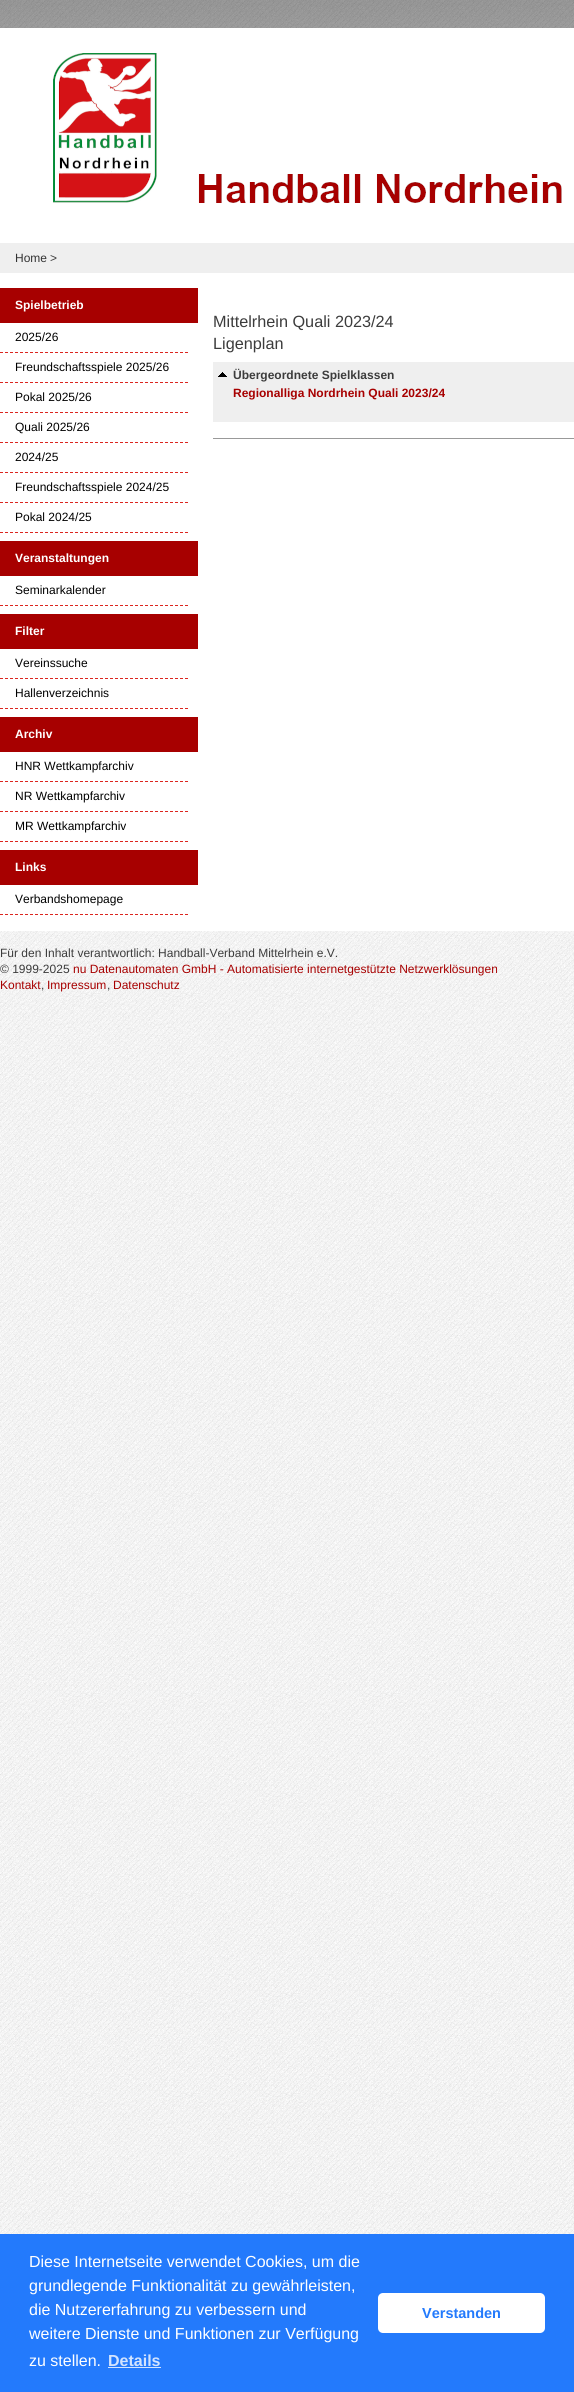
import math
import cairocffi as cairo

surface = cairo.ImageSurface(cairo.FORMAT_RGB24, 574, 2392)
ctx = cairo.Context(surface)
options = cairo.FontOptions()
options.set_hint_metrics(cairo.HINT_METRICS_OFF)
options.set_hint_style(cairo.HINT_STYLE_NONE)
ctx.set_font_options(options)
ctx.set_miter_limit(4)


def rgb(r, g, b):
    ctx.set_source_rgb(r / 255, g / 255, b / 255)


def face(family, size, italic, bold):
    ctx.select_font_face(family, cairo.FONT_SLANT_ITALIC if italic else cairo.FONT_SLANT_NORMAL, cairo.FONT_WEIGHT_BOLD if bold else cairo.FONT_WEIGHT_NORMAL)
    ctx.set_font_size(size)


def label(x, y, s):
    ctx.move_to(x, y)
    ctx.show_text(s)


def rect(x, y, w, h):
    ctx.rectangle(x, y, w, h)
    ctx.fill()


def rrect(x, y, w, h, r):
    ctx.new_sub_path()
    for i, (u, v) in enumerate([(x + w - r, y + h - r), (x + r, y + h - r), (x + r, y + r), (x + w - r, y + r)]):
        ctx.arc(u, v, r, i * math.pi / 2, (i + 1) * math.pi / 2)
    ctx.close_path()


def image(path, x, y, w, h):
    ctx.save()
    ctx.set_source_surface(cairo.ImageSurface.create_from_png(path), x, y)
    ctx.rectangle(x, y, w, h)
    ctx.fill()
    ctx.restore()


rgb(255, 255, 255)
ctx.paint()
image('image0.png', 0, 931, 574, 1303)
image('image1.png', 0, 0, 574, 28)
image('image2.png', 0, 28, 574, 215)
rgb(239, 239, 239)
rect(0, 243, 574, 30)
face('Liberation Sans', 12, 0, 0)
rgb(51, 51, 51)
label(15, 262, 'Home')
rgb(60, 60, 60)
label(50, 262, '>')
rgb(167, 0, 0)
rect(0, 288, 198, 35)
face('Liberation Sans', 12, 0, 1)
rgb(255, 255, 255)
label(15, 309, 'Spielbetrieb')
ctx.new_path()
ctx.move_to(0, 352.5)
ctx.line_to(188, 352.5)
rgb(219, 38, 31)
ctx.set_line_width(1)
ctx.set_dash([3, 2])
ctx.stroke()
face('Liberation Sans', 12, 0, 0)
rgb(0, 0, 0)
label(15, 341, '2025/26')
ctx.new_path()
ctx.move_to(0, 382.5)
ctx.line_to(188, 382.5)
rgb(219, 38, 31)
ctx.stroke()
rgb(0, 0, 0)
label(15, 371, 'Freundschaftsspiele 2025/26')
ctx.new_path()
ctx.move_to(0, 412.5)
ctx.line_to(188, 412.5)
rgb(219, 38, 31)
ctx.stroke()
rgb(0, 0, 0)
label(15, 401, 'Pokal 2025/26')
ctx.new_path()
ctx.move_to(0, 442.5)
ctx.line_to(188, 442.5)
rgb(219, 38, 31)
ctx.stroke()
rgb(0, 0, 0)
label(15, 431, 'Quali 2025/26')
ctx.new_path()
ctx.move_to(0, 472.5)
ctx.line_to(188, 472.5)
rgb(219, 38, 31)
ctx.stroke()
rgb(0, 0, 0)
label(15, 461, '2024/25')
ctx.new_path()
ctx.move_to(0, 502.5)
ctx.line_to(188, 502.5)
rgb(219, 38, 31)
ctx.stroke()
rgb(0, 0, 0)
label(15, 491, 'Freundschaftsspiele 2024/25')
ctx.new_path()
ctx.move_to(0, 532.5)
ctx.line_to(188, 532.5)
rgb(219, 38, 31)
ctx.stroke()
rgb(0, 0, 0)
label(15, 521, 'Pokal 2024/25')
rgb(167, 0, 0)
rect(0, 541, 198, 35)
face('Liberation Sans', 12, 0, 1)
rgb(255, 255, 255)
label(15, 562, 'Veranstaltungen')
ctx.new_path()
ctx.move_to(0, 605.5)
ctx.line_to(188, 605.5)
rgb(219, 38, 31)
ctx.stroke()
face('Liberation Sans', 12, 0, 0)
rgb(0, 0, 0)
label(15, 594, 'Seminarkalender')
rgb(167, 0, 0)
rect(0, 614, 198, 35)
face('Liberation Sans', 12, 0, 1)
rgb(255, 255, 255)
label(15, 635, 'Filter')
ctx.new_path()
ctx.move_to(0, 678.5)
ctx.line_to(188, 678.5)
rgb(219, 38, 31)
ctx.stroke()
face('Liberation Sans', 12, 0, 0)
rgb(0, 0, 0)
label(15, 667, 'Vereinssuche')
ctx.new_path()
ctx.move_to(0, 708.5)
ctx.line_to(188, 708.5)
rgb(219, 38, 31)
ctx.stroke()
rgb(0, 0, 0)
label(15, 697, 'Hallenverzeichnis')
rgb(167, 0, 0)
rect(0, 717, 198, 35)
face('Liberation Sans', 12, 0, 1)
rgb(255, 255, 255)
label(15, 738, 'Archiv')
ctx.new_path()
ctx.move_to(0, 781.5)
ctx.line_to(188, 781.5)
rgb(219, 38, 31)
ctx.stroke()
face('Liberation Sans', 12, 0, 0)
rgb(0, 0, 0)
label(15, 770, 'HNR Wettkampfarchiv')
ctx.new_path()
ctx.move_to(0, 811.5)
ctx.line_to(188, 811.5)
rgb(219, 38, 31)
ctx.stroke()
rgb(0, 0, 0)
label(15, 800, 'NR Wettkampfarchiv')
ctx.new_path()
ctx.move_to(0, 841.5)
ctx.line_to(188, 841.5)
rgb(219, 38, 31)
ctx.stroke()
rgb(0, 0, 0)
label(15, 830, 'MR Wettkampfarchiv')
rgb(167, 0, 0)
rect(0, 850, 198, 35)
face('Liberation Sans', 12, 0, 1)
rgb(255, 255, 255)
label(15, 871, 'Links')
ctx.new_path()
ctx.move_to(0, 914.5)
ctx.line_to(188, 914.5)
rgb(219, 38, 31)
ctx.stroke()
face('Liberation Sans', 12, 0, 0)
rgb(0, 0, 0)
label(15, 903, 'Verbandshomepage')
face('Liberation Sans', 16.25, 0, 0)
rgb(60, 60, 60)
label(213, 327, 'Mittelrhein Quali 2023/24')
label(213, 349, 'Ligenplan')
rgb(239, 239, 239)
rect(213, 362, 361, 60)
image('image3.png', 218, 372, 9, 5)
face('Liberation Sans', 12, 0, 1)
rgb(60, 60, 60)
label(233, 379, 'Übergeordnete Spielklassen')
rgb(167, 0, 0)
label(233, 397, 'Regionalliga Nordrhein Quali 2023/24')
rgb(153, 153, 153)
rect(213, 438, 361, 1)
face('Liberation Sans', 12, 0, 0)
rgb(60, 60, 60)
label(0, 957, 'Für den Inhalt verantwortlich: Handball-Verband Mittelrhein e.V.')
label(0, 973, '© 1999-2025')
rgb(167, 0, 0)
label(73, 973, 'nu Datenautomaten GmbH - Automatisierte internetgestützte Netzwerklösungen')
label(0, 989, 'Kontakt')
rgb(60, 60, 60)
label(41, 989, ',')
rgb(167, 0, 0)
label(47, 989, 'Impressum')
rgb(60, 60, 60)
label(107, 989, ',')
rgb(167, 0, 0)
label(113, 989, 'Datenschutz')
rgb(35, 122, 252)
rect(0, 2234, 574, 158)
face('Liberation Sans', 16, 0, 0)
rgb(255, 255, 255)
label(29, 2267, 'Diese Internetseite verwendet Cookies, um die')
label(29, 2291, 'grundlegende Funktionalität zu gewährleisten,')
label(29, 2315, 'die Nutzererfahrung zu verbessern und')
label(29, 2339, 'weitere Dienste und Funktionen zur Verfügung')
label(29, 2366, 'zu stellen.')
face('Liberation Sans', 16, 0, 1)
rgb(211, 228, 254)
label(108, 2366, 'Details')
rect(108, 2367, 53, 1)
rgb(255, 255, 255)
rrect(378, 2293, 167, 40, 5)
ctx.fill()
face('Liberation Sans', 14.5, 0, 1)
rgb(35, 122, 252)
label(422, 2318, 'Verstanden')
surface.write_to_png('render.png')
